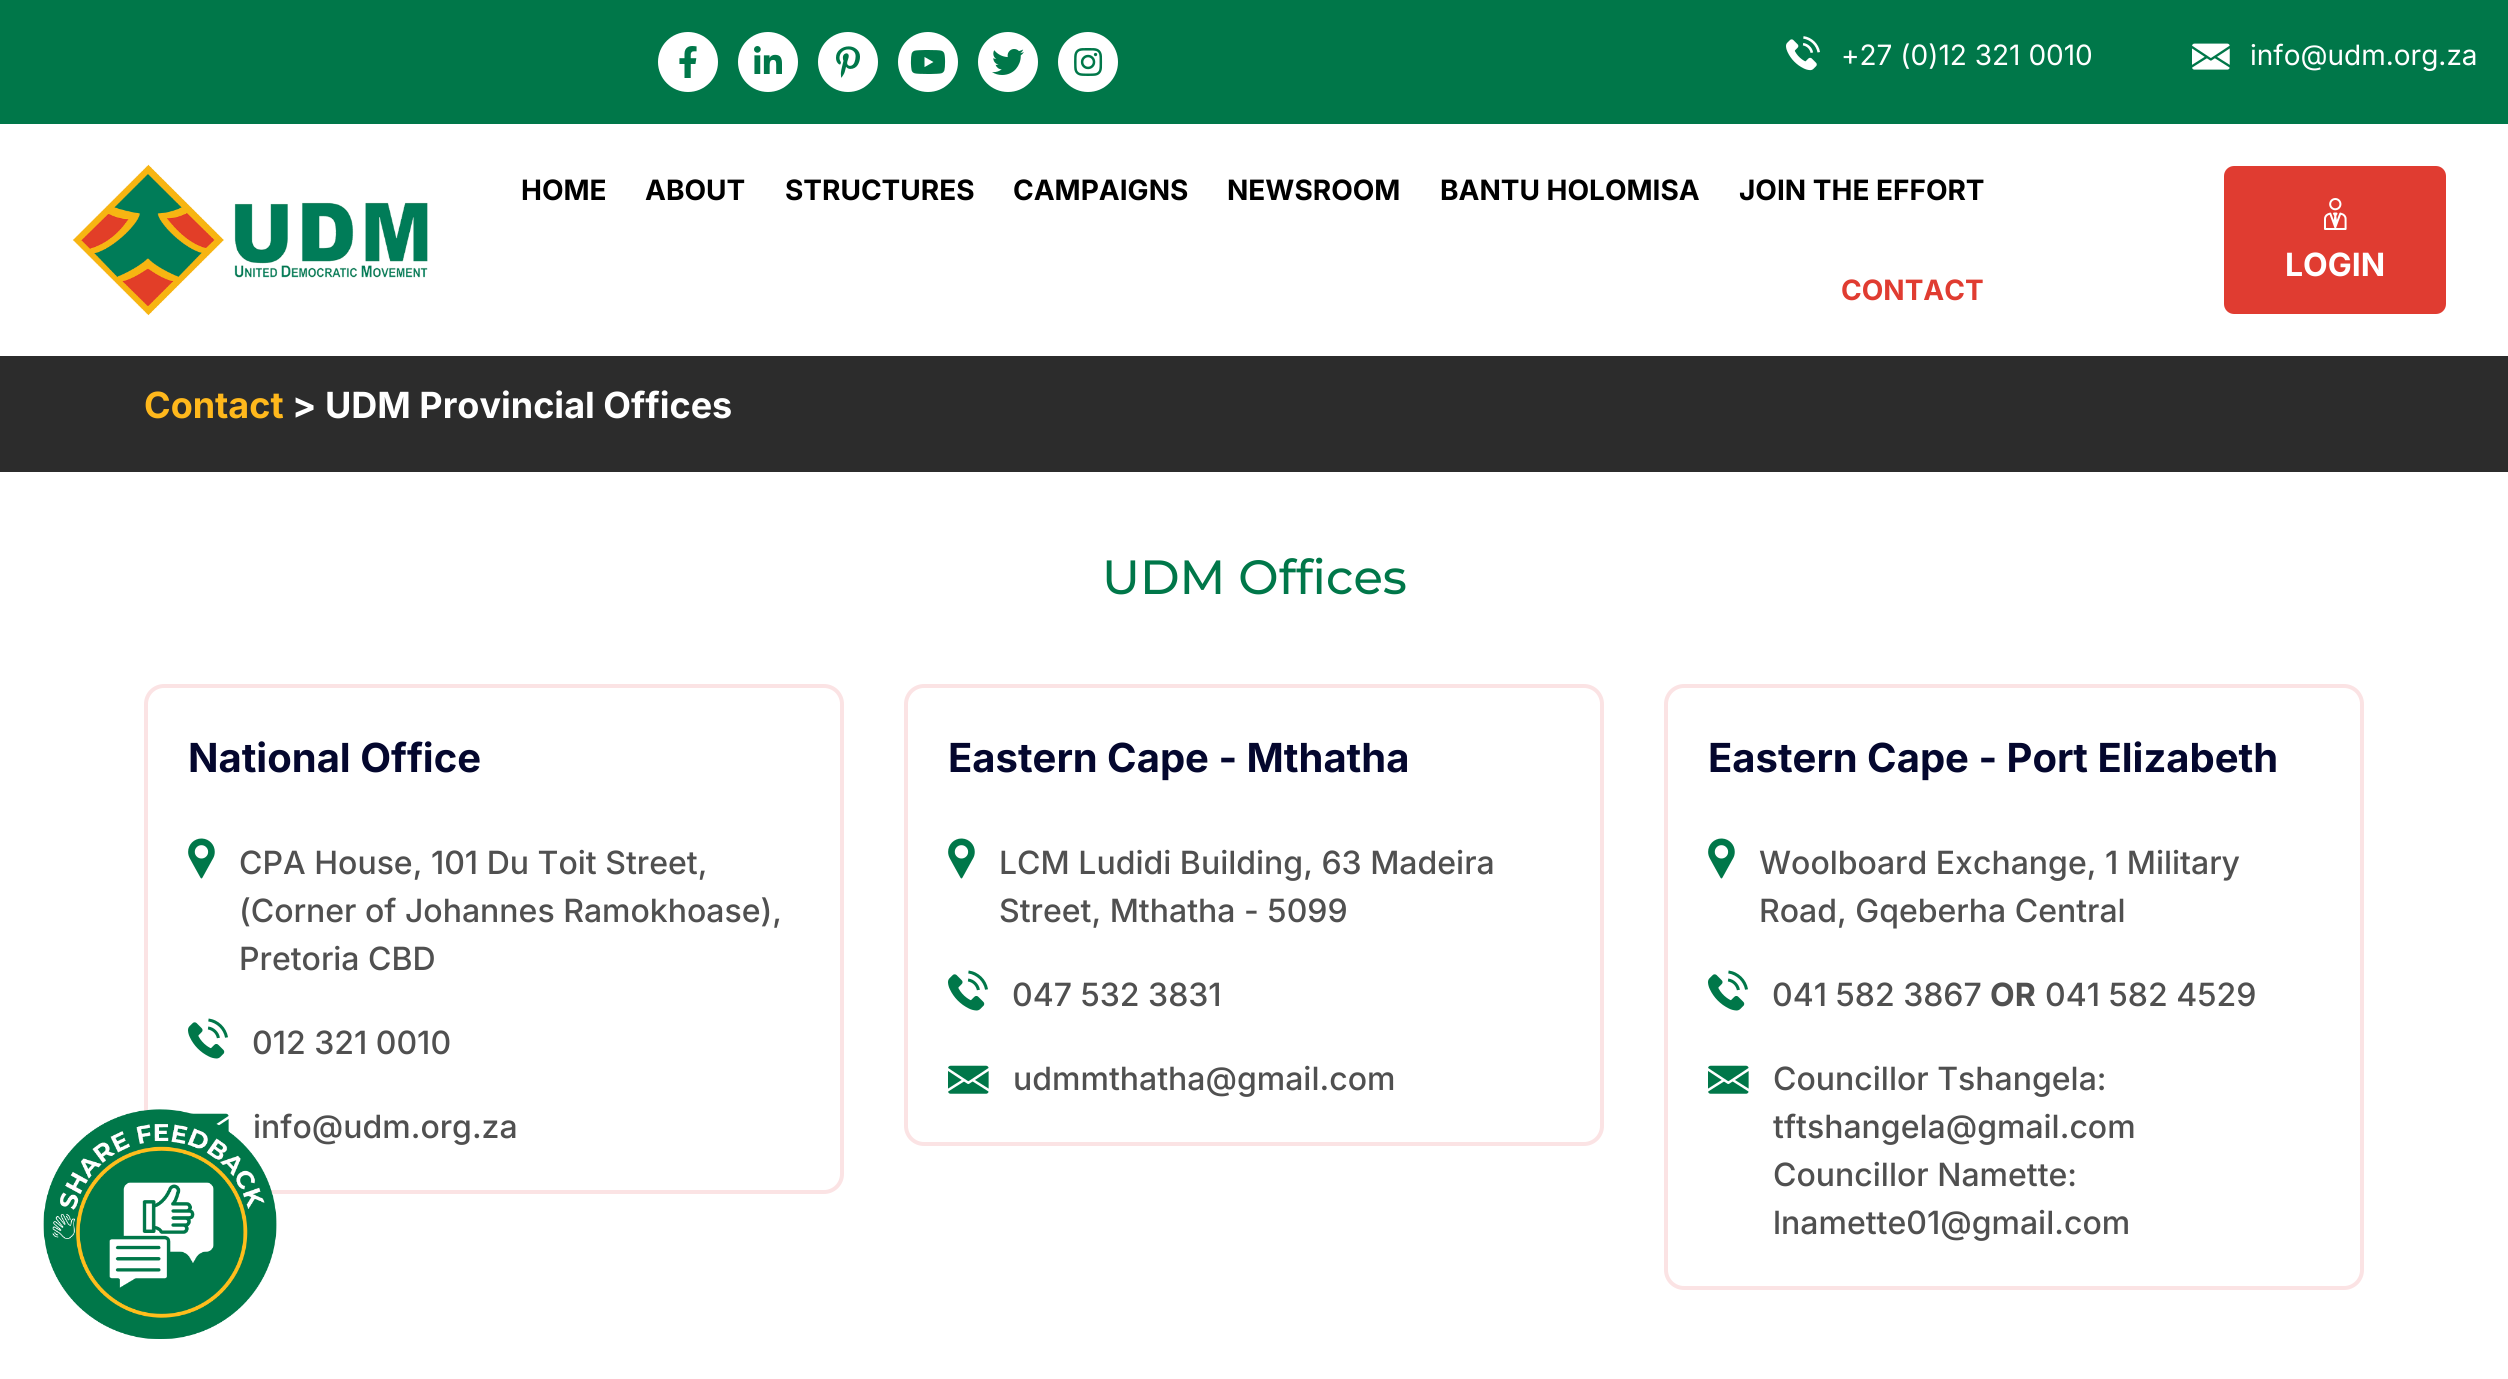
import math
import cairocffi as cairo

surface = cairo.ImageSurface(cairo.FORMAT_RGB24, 2508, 1379)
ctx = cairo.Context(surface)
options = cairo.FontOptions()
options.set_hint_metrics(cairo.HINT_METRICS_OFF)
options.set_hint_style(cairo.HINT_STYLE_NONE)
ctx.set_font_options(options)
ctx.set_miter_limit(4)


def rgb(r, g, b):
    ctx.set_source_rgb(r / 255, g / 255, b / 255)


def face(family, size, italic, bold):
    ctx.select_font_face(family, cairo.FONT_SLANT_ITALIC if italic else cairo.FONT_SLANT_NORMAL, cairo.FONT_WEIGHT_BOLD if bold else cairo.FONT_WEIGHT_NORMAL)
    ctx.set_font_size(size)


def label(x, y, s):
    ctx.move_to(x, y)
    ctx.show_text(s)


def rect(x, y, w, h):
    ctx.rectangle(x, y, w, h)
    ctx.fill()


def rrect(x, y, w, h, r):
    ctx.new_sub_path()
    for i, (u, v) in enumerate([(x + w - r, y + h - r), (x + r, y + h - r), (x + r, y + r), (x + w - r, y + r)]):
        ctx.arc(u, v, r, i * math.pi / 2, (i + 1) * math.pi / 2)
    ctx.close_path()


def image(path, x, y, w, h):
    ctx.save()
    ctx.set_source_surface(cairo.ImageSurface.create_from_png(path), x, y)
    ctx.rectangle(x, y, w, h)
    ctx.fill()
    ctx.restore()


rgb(255, 255, 255)
ctx.paint()
rgb(0, 119, 73)
rect(0, 0, 2508, 124)
rgb(255, 255, 255)
ctx.arc(688, 62, 30, 0, 2 * math.pi)
ctx.fill()
image('image0.png', 679, 46, 18, 32)
ctx.arc(768, 62, 30, 0, 2 * math.pi)
ctx.fill()
image('image1.png', 754, 46, 28, 28)
ctx.arc(848, 62, 30, 0, 2 * math.pi)
ctx.fill()
image('image2.png', 836, 46, 24, 32)
ctx.arc(928, 62, 30, 0, 2 * math.pi)
ctx.fill()
image('image3.png', 910, 50, 36, 24)
ctx.arc(1008, 62, 30, 0, 2 * math.pi)
ctx.fill()
image('image4.png', 992, 49, 32, 26)
ctx.arc(1088, 62, 30, 0, 2 * math.pi)
ctx.fill()
image('image5.png', 1074, 48, 29, 28)
image('image6.png', 1786, 36, 34, 35)
face('Inter', 28, 0, 0)
label(1841, 65, '+27 (0)12 321 0010')
image('image7.png', 2192, 43, 38, 27)
label(2250, 65, 'info@udm.org.za')
image('image8.png', 72, 164, 356, 152)
face('Inter', 28, 0, 1)
rgb(0, 0, 0)
label(521, 200, 'HOME')
label(645, 200, 'ABOUT')
label(785, 200, 'STRUCTURES')
label(1013, 200, 'CAMPAIGNS')
label(1227, 200, 'NEWSROOM')
label(1440, 200, 'BANTU HOLOMISA')
label(1739, 200, 'JOIN THE EFFORT')
rgb(224, 60, 49)
label(1841, 300, 'CONTACT')
rrect(2224, 166, 222, 148, 10)
ctx.fill()
image('image9.png', 2324, 198, 23, 32)
face('Inter', 32, 0, 1)
rgb(255, 255, 255)
label(2285, 276, 'LOGIN')
rgb(44, 44, 44)
rect(0, 356, 2508, 116)
face('Inter', 36, 0, 1)
rgb(255, 184, 28)
label(144, 418, 'Contact')
rgb(255, 255, 255)
label(292, 418, '> UDM Provincial Offices')
rrect(146, 686, 696, 506, 18)
rgb(251, 227, 228)
ctx.set_line_width(4)
ctx.stroke()
image('image13.png', 189, 1113, 40, 19)
face('Inter Medium', 32, 0, 0)
rgb(80, 80, 80)
label(253, 1138, 'info@udm.org.za')
image('image10.png', 43, 1109, 234, 230)
face('Montserrat Medium', 48, 0, 0)
rgb(0, 119, 73)
label(1102, 594, 'UDM Offices')
face('Inter', 40, 0, 1)
rgb(4, 7, 46)
label(188, 772, 'National Office')
image('image11.png', 188, 838, 27, 41)
face('Inter Medium', 32, 0, 0)
rgb(80, 80, 80)
label(239, 874, 'CPA House, 101 Du Toit Street,')
label(239, 922, '(Corner of Johannes Ramokhoase),')
label(239, 970, 'Pretoria CBD')
image('image12.png', 188, 1018, 40, 41)
label(252, 1054, '012 321 0010')
rrect(906, 686, 696, 458, 18)
rgb(251, 227, 228)
ctx.stroke()
face('Inter', 40, 0, 1)
rgb(4, 7, 46)
label(948, 772, 'Eastern Cape - Mthatha')
image('image11.png', 948, 838, 27, 41)
face('Inter Medium', 32, 0, 0)
rgb(80, 80, 80)
label(999, 874, 'LCM Ludidi Building, 63 Madeira')
label(999, 922, 'Street, Mthatha - 5099')
image('image12.png', 948, 970, 40, 41)
label(1012, 1006, '047 532 3831')
image('image14.png', 948, 1065, 41, 29)
label(1013, 1090, 'udmmthatha@gmail.com')
rrect(1666, 686, 696, 602, 18)
rgb(251, 227, 228)
ctx.stroke()
face('Inter', 40, 0, 1)
rgb(4, 7, 46)
label(1708, 772, 'Eastern Cape - Port Elizabeth')
image('image11.png', 1708, 838, 27, 41)
face('Inter Medium', 32, 0, 0)
rgb(80, 80, 80)
label(1759, 874, 'Woolboard Exchange, 1 Military')
label(1759, 922, 'Road, Gqeberha Central')
image('image12.png', 1708, 970, 40, 41)
label(1772, 1006, '041 582 3867')
face('Inter', 32, 0, 1)
label(1990, 1006, 'OR')
face('Inter Medium', 32, 0, 0)
label(2045, 1006, '041 582 4529')
image('image14.png', 1708, 1065, 41, 29)
label(1773, 1090, 'Councillor Tshangela:')
label(1773, 1138, 'tftshangela@gmail.com')
label(1773, 1186, 'Councillor Namette:')
label(1773, 1234, 'lnamette01@gmail.com')
surface.write_to_png('render.png')
